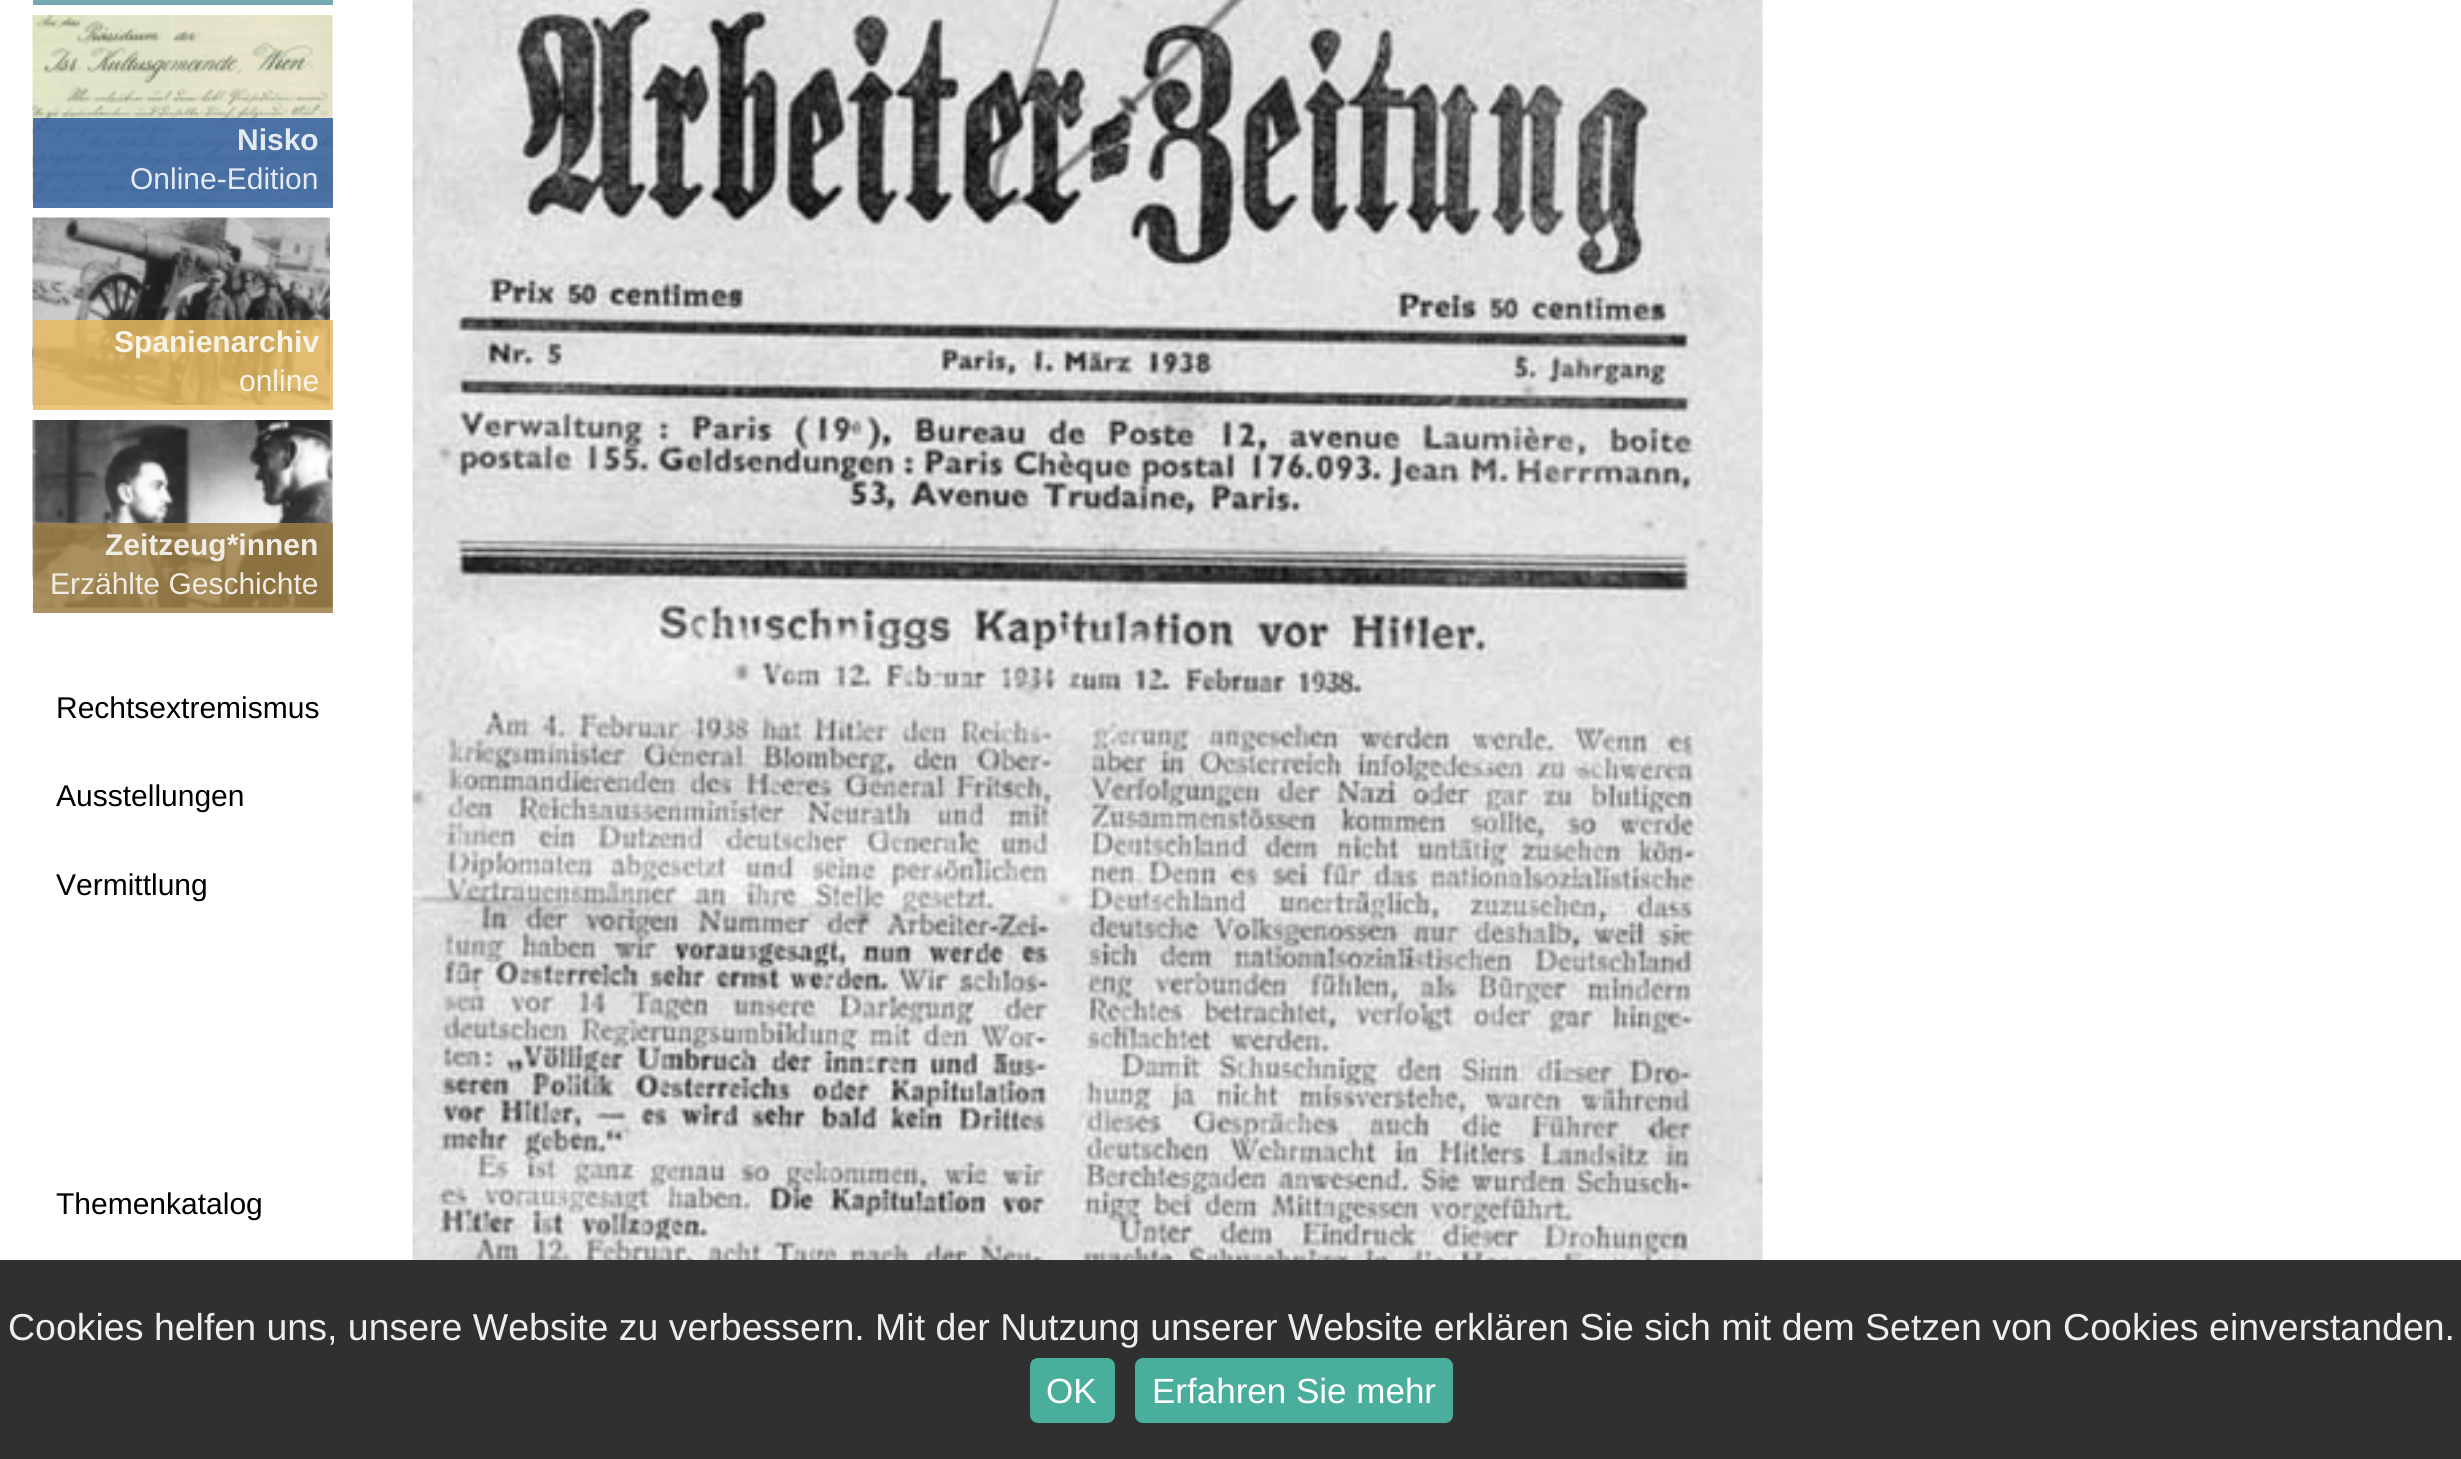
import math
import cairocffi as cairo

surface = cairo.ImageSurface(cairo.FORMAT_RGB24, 2461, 1459)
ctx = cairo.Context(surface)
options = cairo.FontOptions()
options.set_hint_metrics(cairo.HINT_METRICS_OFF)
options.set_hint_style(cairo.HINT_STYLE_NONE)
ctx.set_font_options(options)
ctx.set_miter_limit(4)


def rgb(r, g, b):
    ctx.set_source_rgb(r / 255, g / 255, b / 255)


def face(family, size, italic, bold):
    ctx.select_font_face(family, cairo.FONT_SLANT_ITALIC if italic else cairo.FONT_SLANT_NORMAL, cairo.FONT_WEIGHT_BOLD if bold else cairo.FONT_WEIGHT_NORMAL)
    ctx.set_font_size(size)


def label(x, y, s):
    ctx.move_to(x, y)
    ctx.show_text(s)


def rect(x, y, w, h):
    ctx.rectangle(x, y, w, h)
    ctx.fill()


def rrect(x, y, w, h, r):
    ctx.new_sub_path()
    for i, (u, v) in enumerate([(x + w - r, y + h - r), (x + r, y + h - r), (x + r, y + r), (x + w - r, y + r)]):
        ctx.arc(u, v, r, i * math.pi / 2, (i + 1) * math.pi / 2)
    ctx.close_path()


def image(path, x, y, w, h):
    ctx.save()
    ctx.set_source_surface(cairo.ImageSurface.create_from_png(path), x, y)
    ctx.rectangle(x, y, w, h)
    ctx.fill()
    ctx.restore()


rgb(255, 255, 255)
ctx.paint()
rgb(116, 169, 177)
rect(33, 0, 300, 5)
image('image0.png', 32, 15, 301, 188)
ctx.set_source_rgba(0.192, 0.369, 0.624, 0.85)
rect(33, 118, 300, 90)
face('Liberation Sans', 30, 0, 1)
rgb(228, 234, 241)
label(237, 150, 'Nisko')
face('Liberation Sans', 30, 0, 0)
label(130, 189, 'Online-Edition')
image('image1.png', 32, 217, 298, 188)
ctx.set_source_rgba(0.902, 0.729, 0.38, 0.85)
rect(33, 320, 300, 90)
face('Liberation Sans', 30, 0, 1)
rgb(248, 243, 231)
label(114, 352, 'Spanienarchiv')
face('Liberation Sans', 30, 0, 0)
label(239, 391, 'online')
image('image2.png', 32, 420, 301, 188)
ctx.set_source_rgba(0.612, 0.494, 0.263, 0.85)
rect(33, 523, 300, 90)
face('Liberation Sans', 30, 0, 1)
rgb(240, 236, 229)
label(105, 555, 'Zeitzeug*innen')
face('Liberation Sans', 30, 0, 0)
label(50, 594, 'Erzählte Geschichte')
rgb(0, 0, 0)
label(56, 718, 'Rechtsextremismus')
label(56, 806, 'Ausstellungen')
label(56, 895, 'Vermittlung')
label(56, 1214, 'Themenkatalog')
image('image3.png', 412, 0, 1351, 1260)
rgb(48, 48, 48)
rect(0, 1260, 2461, 199)
face('Liberation Sans', 37.5, 0, 0)
rgb(238, 238, 238)
label(8, 1340, 'Cookies helfen uns, unsere Website zu verbessern. Mit der Nutzung unserer Website erklären Sie sich mit dem Setzen von Cookies einverstanden.')
rgb(74, 174, 156)
rrect(1030, 1358, 85, 65, 8)
ctx.fill()
face('Liberation Sans', 35, 0, 0)
rgb(255, 255, 255)
label(1046, 1403, 'OK')
rgb(74, 174, 156)
rrect(1135, 1358, 318, 65, 8)
ctx.fill()
rgb(255, 255, 255)
label(1152, 1403, 'Erfahren Sie mehr')
surface.write_to_png('render.png')
